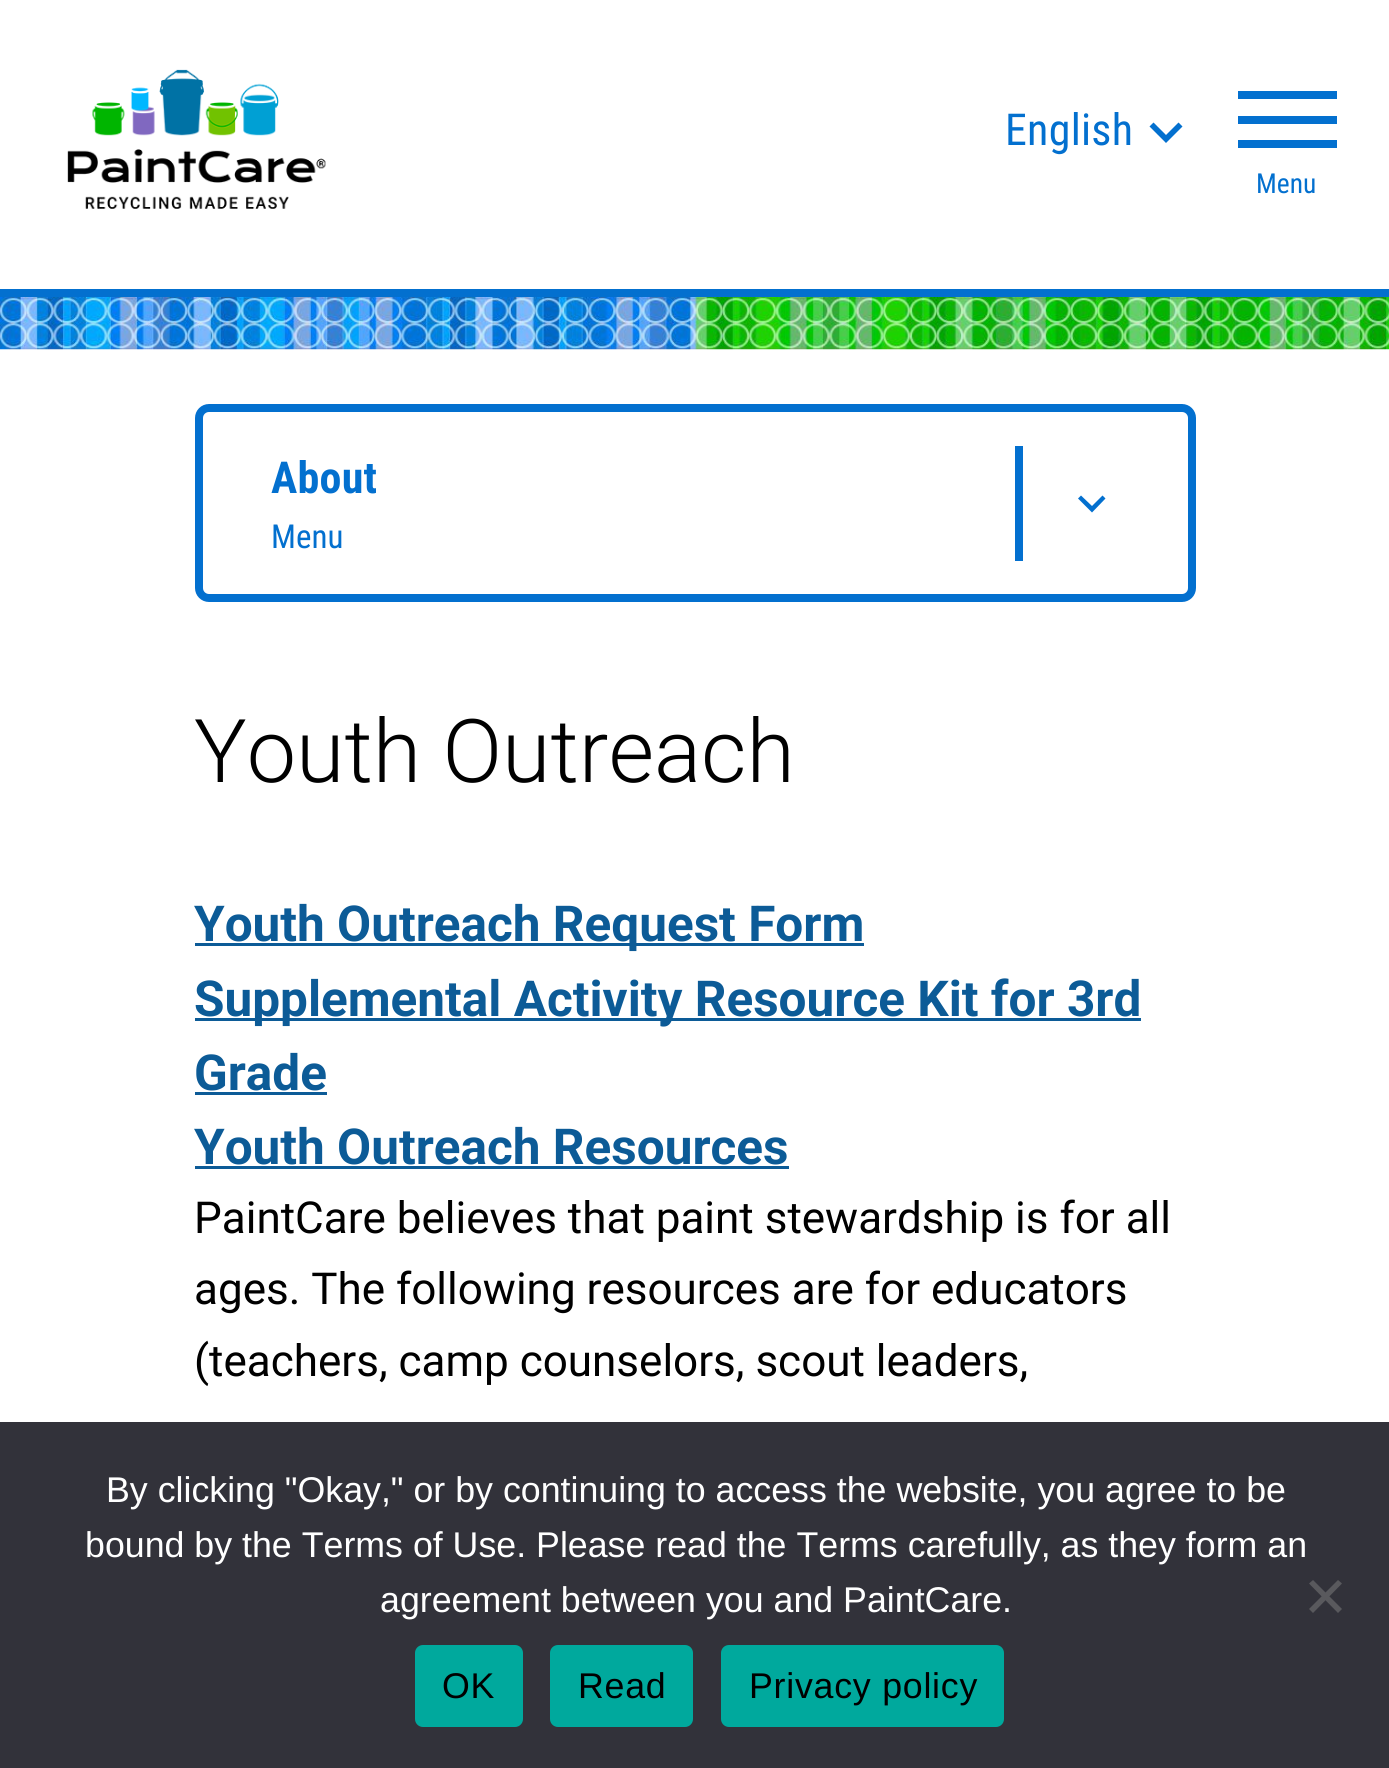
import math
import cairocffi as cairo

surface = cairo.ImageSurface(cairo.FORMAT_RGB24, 1389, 1768)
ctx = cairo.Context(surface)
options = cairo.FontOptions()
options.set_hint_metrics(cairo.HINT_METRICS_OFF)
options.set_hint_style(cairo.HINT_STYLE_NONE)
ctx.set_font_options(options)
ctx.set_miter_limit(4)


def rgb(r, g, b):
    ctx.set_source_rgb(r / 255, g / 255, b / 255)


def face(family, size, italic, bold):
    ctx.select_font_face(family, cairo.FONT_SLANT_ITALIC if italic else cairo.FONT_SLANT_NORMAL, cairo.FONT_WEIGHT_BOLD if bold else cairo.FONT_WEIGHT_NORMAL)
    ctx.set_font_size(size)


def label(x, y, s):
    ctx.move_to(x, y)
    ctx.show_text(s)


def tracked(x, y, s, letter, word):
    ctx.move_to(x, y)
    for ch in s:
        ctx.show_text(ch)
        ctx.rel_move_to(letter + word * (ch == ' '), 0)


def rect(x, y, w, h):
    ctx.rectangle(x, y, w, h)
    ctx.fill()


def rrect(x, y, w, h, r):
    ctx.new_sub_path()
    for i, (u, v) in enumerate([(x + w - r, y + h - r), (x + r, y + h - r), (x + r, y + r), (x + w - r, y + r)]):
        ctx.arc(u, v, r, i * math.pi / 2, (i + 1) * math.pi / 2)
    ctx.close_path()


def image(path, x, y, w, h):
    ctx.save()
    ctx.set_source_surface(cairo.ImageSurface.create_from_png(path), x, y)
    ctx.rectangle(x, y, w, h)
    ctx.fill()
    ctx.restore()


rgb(255, 255, 255)
ctx.paint()
image('image0.png', 67, 69, 259, 140)
face('Roboto Condensed', 44, 0, 0)
rgb(3, 112, 207)
tracked(1005, 145, 'English', 0.25, 0)
ctx.new_path()
ctx.move_to(1153.5, 122.5)
ctx.line_to(1166, 135)
ctx.line_to(1178.5, 122.5)
ctx.line_to(1182.5, 126.5)
ctx.line_to(1166, 143)
ctx.line_to(1149.5, 126.5)
ctx.close_path()
ctx.fill()
rect(1238, 91, 99, 8)
rect(1238, 116, 99, 8)
rect(1238, 140, 99, 8)
face('Roboto Condensed', 27.5, 0, 0)
label(1256, 193, 'Menu')
rect(0, 289, 1389, 8)
image('image1.png', 0, 297, 1389, 53)
rrect(199, 408, 993, 190, 10)
ctx.set_line_width(8)
ctx.stroke()
rect(1015, 446, 8, 115)
face('Roboto Condensed', 44, 0, 1)
tracked(271, 493, 'About', 0.25, 0)
face('Roboto Condensed', 33, 0, 0)
label(271, 548, 'Menu')
ctx.new_path()
ctx.move_to(1081, 495.5)
ctx.line_to(1092, 506)
ctx.line_to(1102.5, 495.5)
ctx.line_to(1105.5, 498.5)
ctx.line_to(1092, 512.5)
ctx.line_to(1078, 498.5)
ctx.close_path()
ctx.fill()
face('Roboto Light', 88, 0, 0)
rgb(0, 0, 0)
label(194, 782, 'Youth Outreach')
rgb(12, 91, 151)
rect(195, 943, 669, 3)
face('Roboto', 49.5, 0, 1)
label(194, 941, 'Youth Outreach Request Form')
rect(195, 1018, 946, 3)
label(194, 1016, 'Supplemental Activity Resource Kit for 3rd')
label(194, 1090, 'Grade')
rect(195, 1092, 132, 3)
label(194, 1164, 'Youth Outreach Resources')
rect(195, 1166, 594, 3)
face('Roboto', 44, 0, 0)
rgb(0, 0, 0)
label(194, 1233, 'PaintCare believes that paint stewardship is for all')
label(194, 1304, 'ages. The following resources are for educators')
label(194, 1376, '(teachers, camp counselors, scout leaders,')
rgb(50, 50, 58)
rect(0, 1422, 1389, 346)
face('Liberation Sans', 35.75, 0, 0)
rgb(255, 255, 255)
label(106, 1502, 'By clicking "Okay," or by continuing to access the website, you agree to be')
label(85, 1557, 'bound by the Terms of Use. Please read the Terms carefully, as they form an')
label(380, 1612, 'agreement between you and PaintCare.')
rgb(89, 89, 93)
ctx.new_path()
ctx.move_to(1338, 1580)
ctx.line_to(1342, 1583.5)
ctx.line_to(1313, 1613)
ctx.line_to(1309, 1609)
ctx.close_path()
ctx.fill()
ctx.new_path()
ctx.move_to(1309, 1583.5)
ctx.line_to(1313, 1580)
ctx.line_to(1342, 1609)
ctx.line_to(1338, 1613)
ctx.close_path()
ctx.fill()
rgb(0, 169, 157)
rrect(415, 1645, 108, 82, 8)
ctx.fill()
rgb(0, 0, 0)
tracked(442, 1698, 'OK', 0.75, 0)
rgb(0, 169, 157)
rrect(550, 1645, 143, 82, 8)
ctx.fill()
rgb(0, 0, 0)
tracked(578, 1698, 'Read', 0.75, 0)
rgb(0, 169, 157)
rrect(721, 1645, 283, 82, 8)
ctx.fill()
rgb(0, 0, 0)
tracked(749, 1698, 'Privacy policy', 0.75, 0)
surface.write_to_png('render.png')
